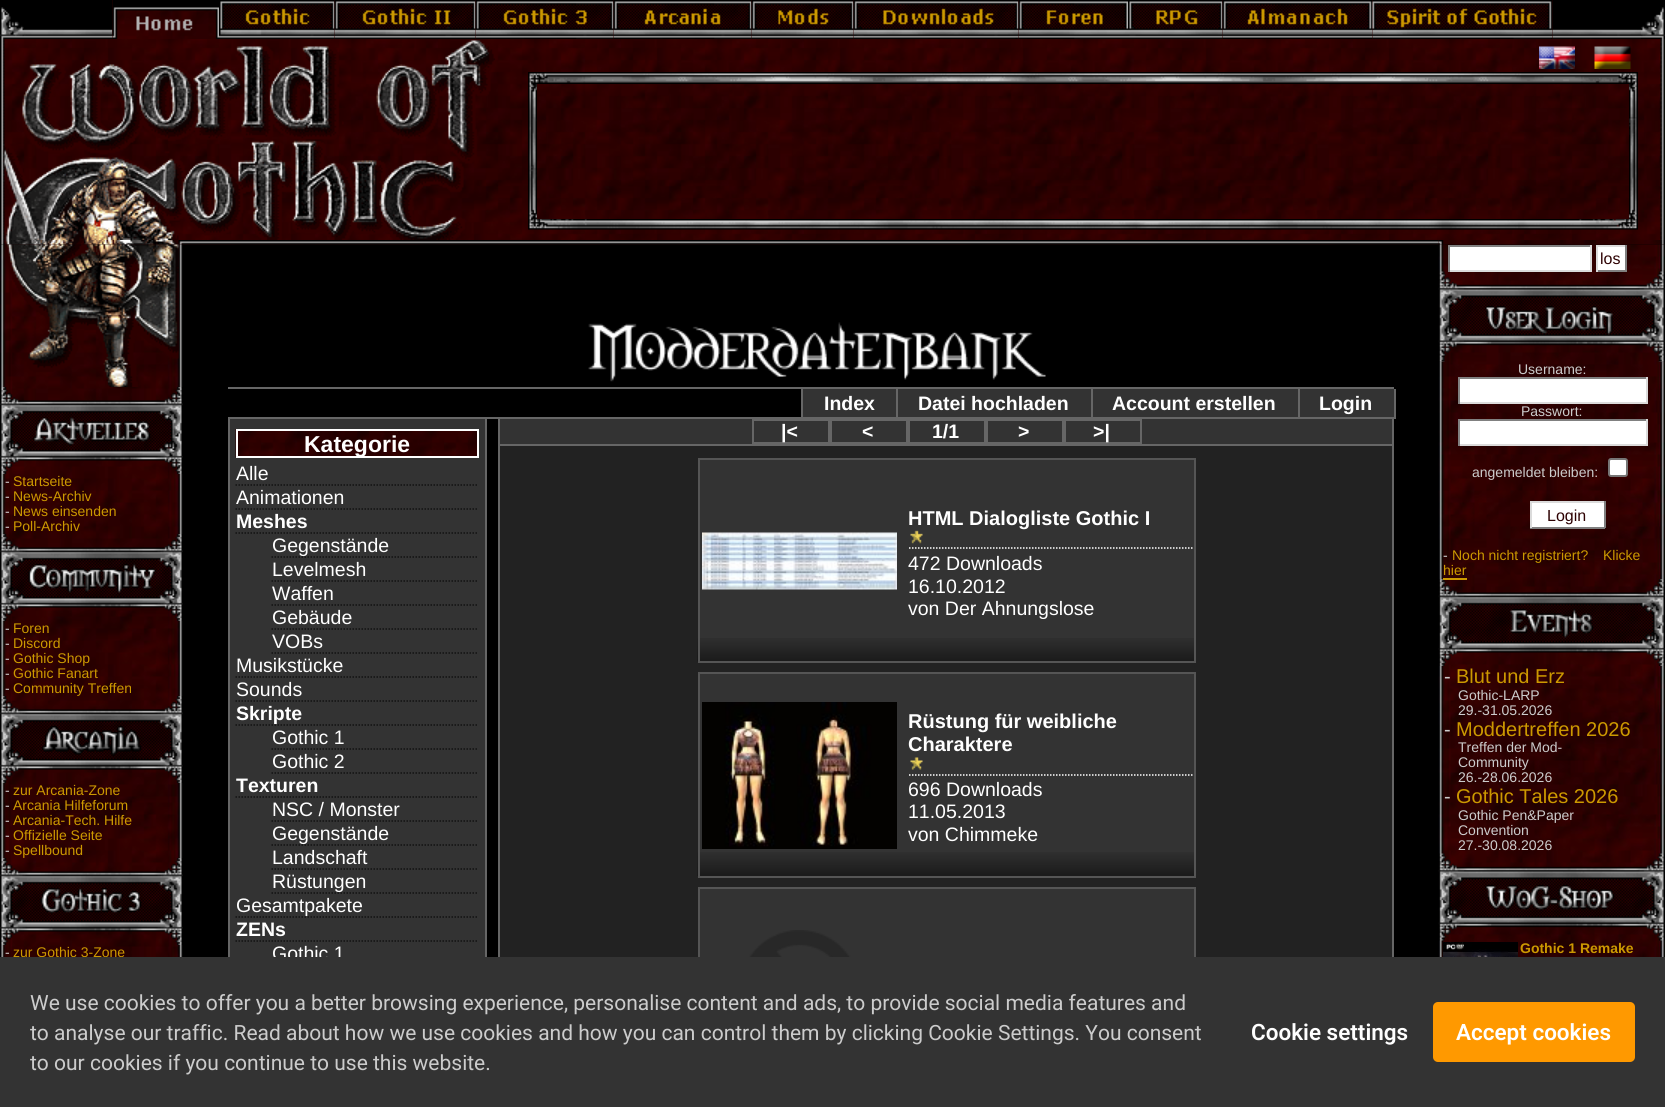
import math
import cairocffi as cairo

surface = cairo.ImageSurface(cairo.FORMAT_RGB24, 1665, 1107)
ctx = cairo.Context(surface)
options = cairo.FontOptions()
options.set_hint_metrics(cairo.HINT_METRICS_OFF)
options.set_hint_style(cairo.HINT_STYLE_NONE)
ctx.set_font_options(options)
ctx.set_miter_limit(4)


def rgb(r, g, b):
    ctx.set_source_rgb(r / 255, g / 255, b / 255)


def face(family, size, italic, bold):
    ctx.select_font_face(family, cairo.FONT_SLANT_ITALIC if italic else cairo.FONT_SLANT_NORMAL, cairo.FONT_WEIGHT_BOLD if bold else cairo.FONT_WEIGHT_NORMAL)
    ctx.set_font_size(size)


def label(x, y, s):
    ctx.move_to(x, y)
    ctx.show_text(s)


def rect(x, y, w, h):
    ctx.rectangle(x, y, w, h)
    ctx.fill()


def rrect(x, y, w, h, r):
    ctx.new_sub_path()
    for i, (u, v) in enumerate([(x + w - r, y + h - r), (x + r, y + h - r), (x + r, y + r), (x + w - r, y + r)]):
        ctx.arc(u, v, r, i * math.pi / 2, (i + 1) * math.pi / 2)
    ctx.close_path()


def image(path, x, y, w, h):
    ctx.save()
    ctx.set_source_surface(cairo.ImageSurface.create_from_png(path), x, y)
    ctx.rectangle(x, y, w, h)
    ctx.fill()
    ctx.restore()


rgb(0, 0, 0)
ctx.paint()
image('image0.png', 4, 39, 1657, 201)
image('image1.png', 0, 0, 24, 39)
image('image2.png', 24, 0, 1617, 39)
image('image3.png', 112, 0, 1441, 39)
image('image4.png', 112, 0, 1, 39)
image('image5.png', 112, 0, 107, 39)
image('image6.png', 223, 0, 112, 39)
image('image7.png', 219, 0, 116, 39)
image('image8.png', 334, 0, 142, 39)
image('image9.png', 334, 0, 142, 39)
image('image10.png', 475, 0, 136, 39)
image('image11.png', 475, 0, 139, 39)
image('image12.png', 613, 0, 139, 39)
image('image13.png', 613, 0, 139, 39)
image('image14.png', 751, 0, 103, 39)
image('image15.png', 751, 0, 103, 39)
image('image16.png', 853, 0, 166, 39)
image('image17.png', 853, 0, 166, 39)
image('image18.png', 1018, 0, 108, 39)
image('image19.png', 1018, 0, 110, 39)
image('image20.png', 1132, 0, 91, 39)
image('image21.png', 1128, 0, 95, 39)
image('image22.png', 1222, 0, 151, 39)
image('image23.png', 1222, 0, 151, 39)
image('image24.png', 1372, 0, 181, 39)
image('image25.png', 1372, 0, 181, 39)
image('image26.png', 1641, 0, 24, 39)
image('image27.png', 0, 39, 495, 201)
image('image28.png', 1660, 39, 5, 201)
image('image29.png', 1539, 46, 36, 23)
image('image30.png', 1594, 46, 37, 23)
image('image31.png', 528, 72, 9, 158)
image('image32.png', 537, 72, 1092, 12)
image('image33.png', 1629, 72, 9, 158)
image('image34.png', 537, 219, 1092, 11)
image('image35.png', 0, 240, 1665, 5)
image('image36.png', 0, 240, 1439, 5)
image('image39.png', 0, 244, 183, 713)
image('image37.png', 0, 240, 183, 5)
image('image58.png', 1438, 244, 227, 713)
image('image38.png', 1438, 240, 227, 5)
image('image40.png', 6, 244, 173, 143)
image('image41.png', 0, 387, 183, 87)
image('image42.png', 33, 417, 118, 29)
face('Liberation Sans', 14, 0, 0)
rgb(204, 204, 204)
label(5, 486, '-')
rgb(204, 153, 0)
label(13, 486, 'Startseite')
rgb(204, 204, 204)
label(5, 501, '-')
rgb(204, 153, 0)
label(13, 501, 'News-Archiv')
rgb(204, 204, 204)
label(5, 516, '-')
rgb(204, 153, 0)
label(13, 516, 'News einsenden')
rgb(204, 204, 204)
label(5, 531, '-')
rgb(204, 153, 0)
label(13, 531, 'Poll-Archiv')
image('image43.png', 0, 534, 183, 87)
image('image44.png', 28, 563, 129, 30)
rgb(204, 204, 204)
label(5, 633, '-')
rgb(204, 153, 0)
label(13, 633, 'Foren')
rgb(204, 204, 204)
label(5, 648, '-')
rgb(204, 153, 0)
label(13, 648, 'Discord')
rgb(204, 204, 204)
label(5, 663, '-')
rgb(204, 153, 0)
label(13, 663, 'Gothic Shop')
rgb(204, 204, 204)
label(5, 678, '-')
rgb(204, 153, 0)
label(13, 678, 'Gothic Fanart')
rgb(204, 204, 204)
label(5, 693, '-')
rgb(204, 153, 0)
label(13, 693, 'Community Treffen')
image('image45.png', 0, 696, 183, 87)
image('image46.png', 41, 725, 101, 31)
rgb(204, 204, 204)
label(5, 795, '-')
rgb(204, 153, 0)
label(13, 795, 'zur Arcania-Zone')
rgb(204, 204, 204)
label(5, 810, '-')
rgb(204, 153, 0)
label(13, 810, 'Arcania Hilfeforum')
rgb(204, 204, 204)
label(5, 825, '-')
rgb(204, 153, 0)
label(13, 825, 'Arcania-Tech. Hilfe')
rgb(204, 204, 204)
label(5, 840, '-')
rgb(204, 153, 0)
label(13, 840, 'Offizielle Seite')
rgb(204, 204, 204)
label(5, 855, '-')
rgb(204, 153, 0)
label(13, 855, 'Spellbound')
image('image47.png', 0, 858, 183, 87)
image('image48.png', 40, 887, 102, 27)
rgb(204, 204, 204)
label(5, 957, '-')
rgb(204, 153, 0)
label(13, 957, 'zur Gothic 3-Zone')
image('image49.png', 588, 322, 458, 60)
rgb(102, 102, 102)
rect(228, 387, 1166, 2)
rect(1394, 389, 2, 30)
rect(228, 417, 1167, 2)
rgb(51, 51, 51)
rect(803, 389, 93, 28)
rgb(102, 102, 102)
rect(801, 389, 2, 28)
face('Liberation Sans', 19.5, 0, 1)
rgb(255, 255, 255)
label(824, 410, 'Index')
rgb(51, 51, 51)
rect(898, 389, 193, 28)
rgb(102, 102, 102)
rect(896, 389, 2, 28)
rgb(255, 255, 255)
label(918, 410, 'Datei hochladen')
rgb(51, 51, 51)
rect(1093, 389, 205, 28)
rgb(102, 102, 102)
rect(1091, 389, 2, 28)
rgb(255, 255, 255)
label(1112, 410, 'Account erstellen')
rgb(51, 51, 51)
rect(1300, 389, 94, 28)
rgb(102, 102, 102)
rect(1298, 389, 2, 28)
rgb(255, 255, 255)
label(1319, 410, 'Login')
rgb(51, 51, 51)
rect(230, 419, 255, 538)
rgb(102, 102, 102)
rect(485, 419, 2, 538)
rect(228, 419, 2, 538)
image('image50.png', 235, 429, 242, 29)
ctx.rectangle(237, 430, 241, 27)
rgb(255, 255, 255)
ctx.stroke()
face('Liberation Sans', 23, 0, 1)
label(304, 452, 'Kategorie')
ctx.new_path()
ctx.move_to(235.5, 485)
ctx.line_to(478.5, 485)
rgb(17, 17, 17)
ctx.set_line_width(1.5)
ctx.set_dash([1.5, 1.5])
ctx.stroke()
face('Liberation Sans', 19.5, 0, 0)
rgb(255, 255, 255)
label(236, 480, 'Alle')
ctx.new_path()
ctx.move_to(235.5, 509)
ctx.line_to(478.5, 509)
rgb(17, 17, 17)
ctx.stroke()
rgb(255, 255, 255)
label(236, 504, 'Animationen')
ctx.new_path()
ctx.move_to(235.5, 533)
ctx.line_to(478.5, 533)
rgb(17, 17, 17)
ctx.stroke()
face('Liberation Sans', 19.5, 0, 1)
rgb(255, 255, 255)
label(236, 528, 'Meshes')
ctx.new_path()
ctx.move_to(271.5, 557)
ctx.line_to(478.5, 557)
rgb(17, 17, 17)
ctx.stroke()
face('Liberation Sans', 19.5, 0, 0)
rgb(255, 255, 255)
label(272, 552, 'Gegenstände')
ctx.new_path()
ctx.move_to(271.5, 581)
ctx.line_to(478.5, 581)
rgb(17, 17, 17)
ctx.stroke()
rgb(255, 255, 255)
label(272, 576, 'Levelmesh')
ctx.new_path()
ctx.move_to(271.5, 605)
ctx.line_to(478.5, 605)
rgb(17, 17, 17)
ctx.stroke()
rgb(255, 255, 255)
label(272, 600, 'Waffen')
ctx.new_path()
ctx.move_to(271.5, 629)
ctx.line_to(478.5, 629)
rgb(17, 17, 17)
ctx.stroke()
rgb(255, 255, 255)
label(272, 624, 'Gebäude')
ctx.new_path()
ctx.move_to(271.5, 653)
ctx.line_to(478.5, 653)
rgb(17, 17, 17)
ctx.stroke()
rgb(255, 255, 255)
label(272, 648, 'VOBs')
ctx.new_path()
ctx.move_to(235.5, 677)
ctx.line_to(478.5, 677)
rgb(17, 17, 17)
ctx.stroke()
rgb(255, 255, 255)
label(236, 672, 'Musikstücke')
ctx.new_path()
ctx.move_to(235.5, 701)
ctx.line_to(478.5, 701)
rgb(17, 17, 17)
ctx.stroke()
rgb(255, 255, 255)
label(236, 696, 'Sounds')
ctx.new_path()
ctx.move_to(235.5, 725)
ctx.line_to(478.5, 725)
rgb(17, 17, 17)
ctx.stroke()
face('Liberation Sans', 19.5, 0, 1)
rgb(255, 255, 255)
label(236, 720, 'Skripte')
ctx.new_path()
ctx.move_to(271.5, 749)
ctx.line_to(478.5, 749)
rgb(17, 17, 17)
ctx.stroke()
face('Liberation Sans', 19.5, 0, 0)
rgb(255, 255, 255)
label(272, 744, 'Gothic 1')
ctx.new_path()
ctx.move_to(271.5, 773)
ctx.line_to(478.5, 773)
rgb(17, 17, 17)
ctx.stroke()
rgb(255, 255, 255)
label(272, 768, 'Gothic 2')
ctx.new_path()
ctx.move_to(235.5, 797)
ctx.line_to(478.5, 797)
rgb(17, 17, 17)
ctx.stroke()
face('Liberation Sans', 19.5, 0, 1)
rgb(255, 255, 255)
label(236, 792, 'Texturen')
ctx.new_path()
ctx.move_to(271.5, 821)
ctx.line_to(478.5, 821)
rgb(17, 17, 17)
ctx.stroke()
face('Liberation Sans', 19.5, 0, 0)
rgb(255, 255, 255)
label(272, 816, 'NSC / Monster')
ctx.new_path()
ctx.move_to(271.5, 845)
ctx.line_to(478.5, 845)
rgb(17, 17, 17)
ctx.stroke()
rgb(255, 255, 255)
label(272, 840, 'Gegenstände')
ctx.new_path()
ctx.move_to(271.5, 869)
ctx.line_to(478.5, 869)
rgb(17, 17, 17)
ctx.stroke()
rgb(255, 255, 255)
label(272, 864, 'Landschaft')
ctx.new_path()
ctx.move_to(271.5, 893)
ctx.line_to(478.5, 893)
rgb(17, 17, 17)
ctx.stroke()
rgb(255, 255, 255)
label(272, 888, 'Rüstungen')
ctx.new_path()
ctx.move_to(235.5, 917)
ctx.line_to(478.5, 917)
rgb(17, 17, 17)
ctx.stroke()
rgb(255, 255, 255)
label(236, 912, 'Gesamtpakete')
ctx.new_path()
ctx.move_to(235.5, 941)
ctx.line_to(478.5, 941)
rgb(17, 17, 17)
ctx.stroke()
face('Liberation Sans', 19.5, 0, 1)
rgb(255, 255, 255)
label(236, 936, 'ZENs')
face('Liberation Sans', 19.5, 0, 0)
label(272, 960, 'Gothic 1')
rgb(102, 102, 102)
rect(498, 419, 2, 538)
rgb(51, 51, 51)
rect(500, 419, 892, 25)
rgb(102, 102, 102)
rect(1392, 419, 2, 538)
rect(500, 444, 894, 2)
ctx.rectangle(753, 420, 76, 23)
ctx.set_line_width(2)
ctx.set_dash([])
ctx.stroke()
face('Liberation Sans', 19.5, 0, 1)
rgb(255, 255, 255)
label(781, 438, '|<')
ctx.rectangle(831, 420, 76, 23)
rgb(102, 102, 102)
ctx.stroke()
rgb(255, 255, 255)
label(862, 438, '<')
ctx.rectangle(909, 420, 76, 23)
rgb(102, 102, 102)
ctx.stroke()
rgb(255, 255, 255)
label(932, 438, '1/1')
ctx.rectangle(987, 420, 76, 23)
rgb(102, 102, 102)
ctx.stroke()
rgb(255, 255, 255)
label(1018, 438, '>')
ctx.rectangle(1065, 420, 76, 23)
rgb(102, 102, 102)
ctx.stroke()
rgb(255, 255, 255)
label(1093, 438, '>|')
rgb(34, 34, 34)
rect(500, 446, 892, 511)
rgb(51, 51, 51)
rect(700, 460, 494, 201)
image('image51.png', 697, 638, 497, 24)
ctx.rectangle(699, 459, 496, 203)
rgb(85, 85, 85)
ctx.stroke()
image('image52.png', 702, 532, 195, 58)
ctx.new_path()
ctx.move_to(909, 548)
ctx.line_to(1192.5, 548)
rgb(255, 255, 255)
ctx.set_line_width(1.5)
ctx.set_dash([1.5, 1.5])
ctx.stroke()
face('Liberation Sans', 20, 0, 1)
label(908, 525, 'HTML Dialogliste Gothic I')
image('image53.png', 910, 530, 13, 14)
face('Liberation Sans', 19.5, 0, 0)
label(908, 570, '472 Downloads')
label(908, 593, '16.10.2012')
label(908, 615, 'von Der Ahnungslose')
rgb(51, 51, 51)
rect(700, 674, 494, 202)
image('image54.png', 697, 852, 497, 24)
ctx.rectangle(699, 673, 496, 204)
rgb(85, 85, 85)
ctx.set_line_width(2)
ctx.set_dash([])
ctx.stroke()
image('image55.png', 702, 702, 195, 147)
ctx.new_path()
ctx.move_to(909, 775)
ctx.line_to(1192.5, 775)
rgb(255, 255, 255)
ctx.set_line_width(1.5)
ctx.set_dash([1.5, 1.5])
ctx.stroke()
face('Liberation Sans', 20, 0, 1)
label(908, 728, 'Rüstung für weibliche')
label(908, 751, 'Charaktere')
image('image56.png', 910, 757, 13, 13)
face('Liberation Sans', 19.5, 0, 0)
label(908, 796, '696 Downloads')
label(908, 818, '11.05.2013')
label(908, 841, 'von Chimmeke')
rgb(51, 51, 51)
rect(700, 889, 494, 68)
ctx.rectangle(699, 888, 496, 203)
rgb(85, 85, 85)
ctx.set_line_width(2)
ctx.set_dash([])
ctx.stroke()
image('image57.png', 748, 930, 103, 27)
rgb(255, 255, 255)
rect(1450, 247, 140, 23)
rgb(128, 128, 128)
rect(1448, 245, 144, 2)
image('image59.png', 1438, 271, 227, 91)
rgb(219, 219, 219)
rect(1590, 245, 2, 27)
rect(1448, 270, 144, 2)
rgb(128, 128, 128)
rect(1448, 245, 2, 27)
rgb(255, 255, 255)
rect(1598, 247, 27, 23)
rgb(219, 219, 219)
rect(1596, 245, 30, 2)
rgb(128, 128, 128)
rect(1625, 245, 2, 27)
rect(1596, 270, 30, 2)
rgb(219, 219, 219)
rect(1596, 245, 2, 27)
face('Liberation Sans', 16, 0, 0)
rgb(45, 1, 2)
label(1600, 264, 'los')
image('image60.png', 1485, 305, 128, 30)
face('Liberation Sans', 14, 0, 0)
rgb(204, 204, 204)
label(1518, 374, 'Username:')
rgb(255, 255, 255)
rect(1460, 379, 186, 23)
rgb(128, 128, 128)
rect(1458, 377, 189, 2)
rgb(219, 219, 219)
rect(1646, 377, 2, 27)
rect(1458, 402, 189, 2)
rgb(128, 128, 128)
rect(1458, 377, 2, 27)
rgb(204, 204, 204)
label(1521, 416, 'Passwort:')
rgb(255, 255, 255)
rect(1460, 421, 186, 23)
rgb(128, 128, 128)
rect(1458, 419, 189, 2)
rgb(219, 219, 219)
rect(1646, 419, 2, 27)
rect(1458, 444, 189, 2)
rgb(128, 128, 128)
rect(1458, 419, 2, 27)
rgb(204, 204, 204)
label(1472, 477, 'angemeldet bleiben:')
rgb(255, 255, 255)
rrect(1609, 459, 18, 17, 2)
ctx.fill_preserve()
rgb(118, 118, 118)
ctx.stroke()
rgb(255, 255, 255)
rect(1532, 503, 72, 24)
rgb(219, 219, 219)
rect(1530, 501, 75, 2)
rgb(128, 128, 128)
rect(1604, 501, 2, 27)
rect(1530, 527, 75, 2)
rgb(219, 219, 219)
rect(1530, 501, 2, 27)
face('Liberation Sans', 16, 0, 0)
rgb(45, 1, 2)
label(1547, 521, 'Login')
face('Liberation Sans', 14, 0, 0)
rgb(204, 204, 204)
label(1443, 560, '-')
rgb(204, 153, 0)
label(1452, 560, 'Noch nicht registriert?')
label(1603, 560, 'Klicke')
label(1443, 575, 'hier')
image('image61.png', 1438, 579, 227, 87)
rect(1443, 578, 24, 2)
image('image62.png', 1510, 608, 84, 30)
face('Liberation Sans', 20, 0, 0)
rgb(204, 204, 204)
label(1444, 683, '-')
rgb(204, 153, 0)
label(1456, 683, 'Blut und Erz')
face('Liberation Sans', 14, 0, 0)
rgb(204, 204, 204)
label(1458, 700, 'Gothic-LARP')
label(1458, 715, '29.-31.05.2026')
face('Liberation Sans', 20, 0, 0)
label(1444, 736, '-')
rgb(204, 153, 0)
label(1456, 736, 'Moddertreffen 2026')
face('Liberation Sans', 14, 0, 0)
rgb(204, 204, 204)
label(1458, 752, 'Treffen der Mod-')
label(1458, 767, 'Community')
label(1458, 782, '26.-28.06.2026')
face('Liberation Sans', 20, 0, 0)
label(1444, 803, '-')
rgb(204, 153, 0)
label(1456, 803, 'Gothic Tales 2026')
face('Liberation Sans', 14, 0, 0)
rgb(204, 204, 204)
label(1458, 820, 'Gothic Pen&Paper')
label(1458, 835, 'Convention')
label(1458, 850, '27.-30.08.2026')
image('image63.png', 1438, 853, 227, 88)
image('image64.png', 1484, 884, 131, 27)
image('image65.png', 1443, 942, 75, 15)
face('Liberation Sans', 14, 0, 1)
rgb(204, 153, 0)
label(1520, 953, 'Gothic 1 Remake')
rgb(51, 51, 51)
rect(0, 957, 1665, 150)
face('Roboto', 21, 0, 0)
rgb(204, 204, 204)
label(30, 1010, 'We use cookies to offer you a better browsing experience, personalise content and ads, to provide social media features and')
label(30, 1040, 'to analyse our traffic. Read about how we use cookies and how you can control them by clicking Cookie Settings. You consent')
label(30, 1070, 'to our cookies if you continue to use this website.')
face('Roboto SemiBold', 22.5, 0, 0)
rgb(255, 255, 255)
label(1251, 1040, 'Cookie settings')
rgb(255, 153, 0)
rrect(1433, 1002, 202, 60, 5)
ctx.fill()
rgb(255, 255, 255)
label(1456, 1040, 'Accept cookies')
surface.write_to_png('render.png')
